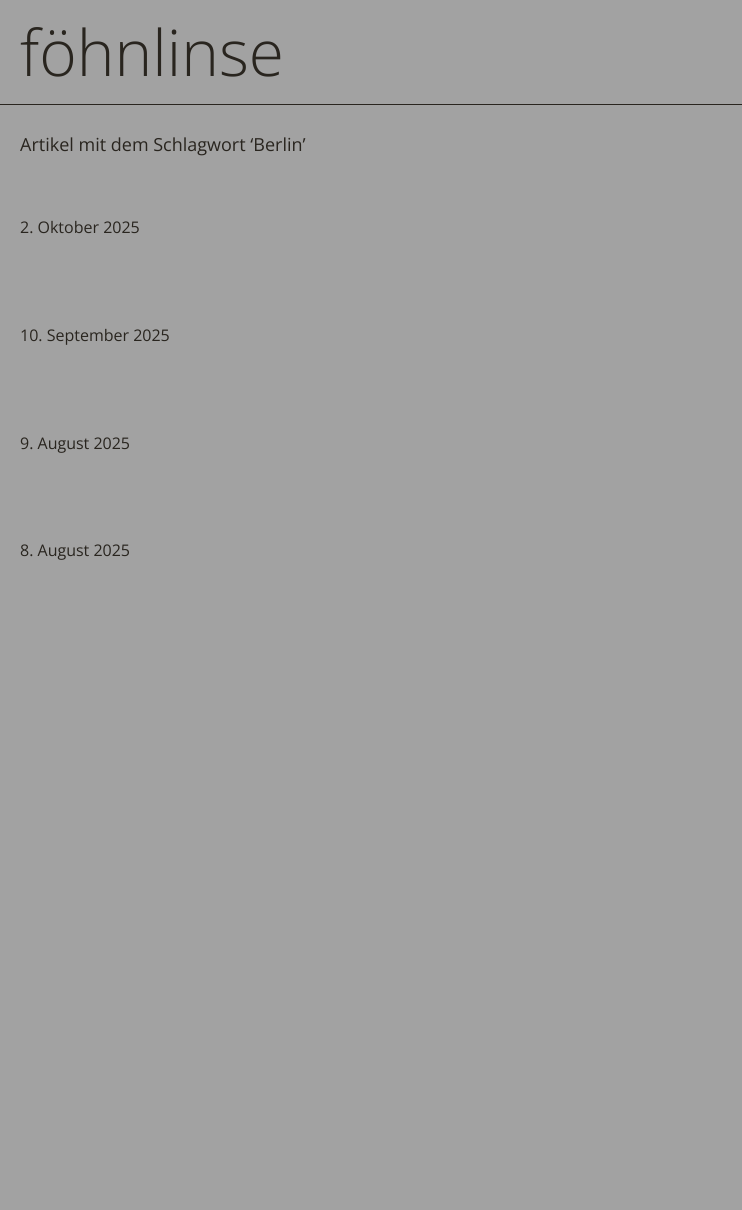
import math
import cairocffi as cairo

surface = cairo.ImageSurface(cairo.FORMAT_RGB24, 742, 1210)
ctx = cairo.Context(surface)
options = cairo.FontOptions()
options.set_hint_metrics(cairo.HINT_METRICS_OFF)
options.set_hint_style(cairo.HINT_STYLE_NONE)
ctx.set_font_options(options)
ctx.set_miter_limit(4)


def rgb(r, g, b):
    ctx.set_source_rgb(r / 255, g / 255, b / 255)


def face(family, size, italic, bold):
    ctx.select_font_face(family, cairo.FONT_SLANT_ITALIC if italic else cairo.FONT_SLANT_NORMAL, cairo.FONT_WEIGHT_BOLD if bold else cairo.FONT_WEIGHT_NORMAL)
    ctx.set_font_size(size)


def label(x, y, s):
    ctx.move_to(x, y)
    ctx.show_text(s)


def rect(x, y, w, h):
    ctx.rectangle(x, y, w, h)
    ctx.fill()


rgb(162, 162, 162)
ctx.paint()
rgb(41, 37, 31)
rect(0, 104, 742, 1)
face('Open Sans Light', 64, 0, 0)
label(20, 76, 'föhnlinse')
face('Open Sans', 18, 0, 0)
label(20, 151, 'Artikel mit dem Schlagwort ‘Berlin’')
face('Open Sans', 16, 0, 0)
label(20, 233, '2. Oktober 2025')
label(20, 341, '10. September 2025')
label(20, 449, '9. August 2025')
label(20, 556, '8. August 2025')
surface.write_to_png('render.png')
